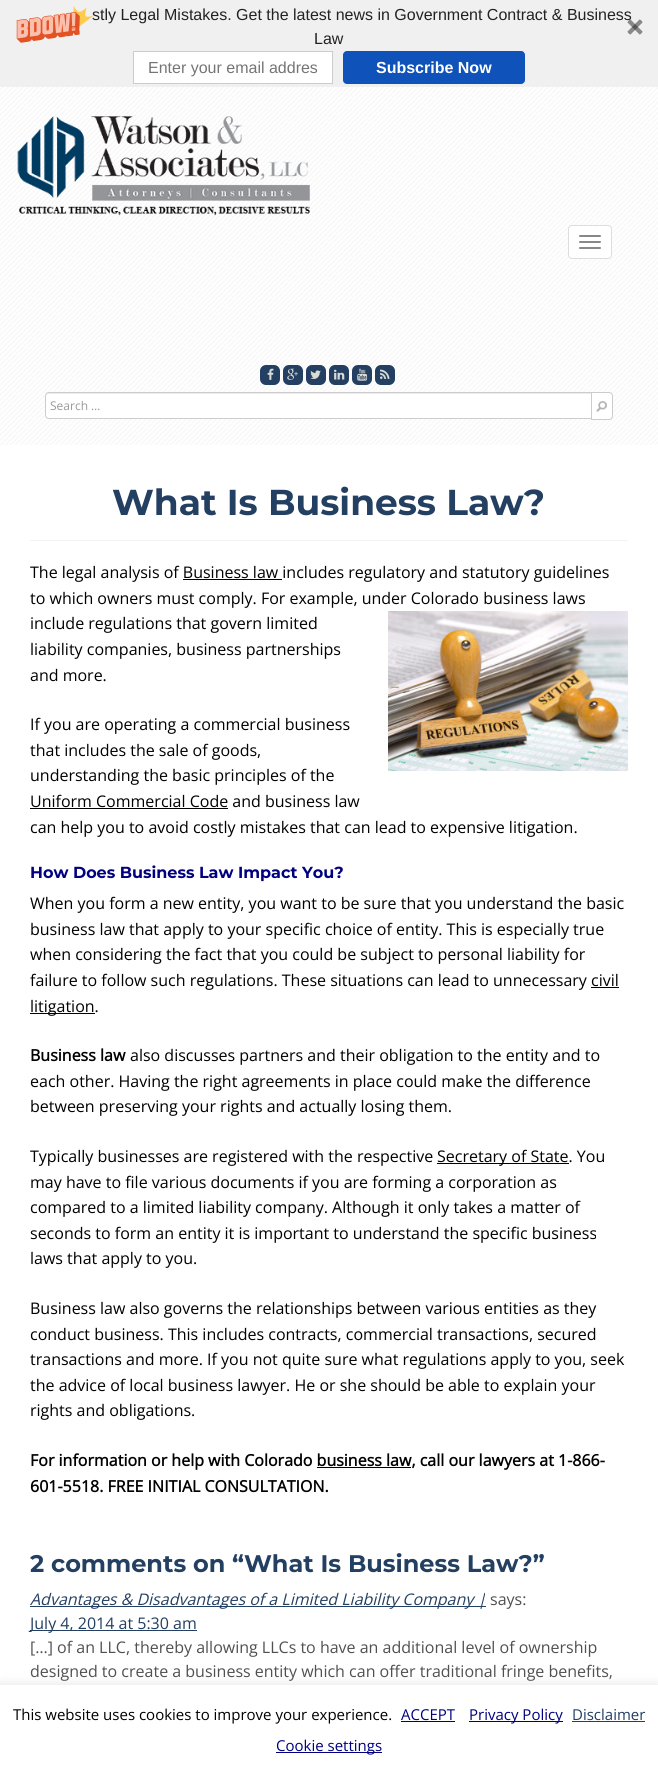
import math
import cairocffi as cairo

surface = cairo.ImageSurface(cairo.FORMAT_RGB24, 658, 1771)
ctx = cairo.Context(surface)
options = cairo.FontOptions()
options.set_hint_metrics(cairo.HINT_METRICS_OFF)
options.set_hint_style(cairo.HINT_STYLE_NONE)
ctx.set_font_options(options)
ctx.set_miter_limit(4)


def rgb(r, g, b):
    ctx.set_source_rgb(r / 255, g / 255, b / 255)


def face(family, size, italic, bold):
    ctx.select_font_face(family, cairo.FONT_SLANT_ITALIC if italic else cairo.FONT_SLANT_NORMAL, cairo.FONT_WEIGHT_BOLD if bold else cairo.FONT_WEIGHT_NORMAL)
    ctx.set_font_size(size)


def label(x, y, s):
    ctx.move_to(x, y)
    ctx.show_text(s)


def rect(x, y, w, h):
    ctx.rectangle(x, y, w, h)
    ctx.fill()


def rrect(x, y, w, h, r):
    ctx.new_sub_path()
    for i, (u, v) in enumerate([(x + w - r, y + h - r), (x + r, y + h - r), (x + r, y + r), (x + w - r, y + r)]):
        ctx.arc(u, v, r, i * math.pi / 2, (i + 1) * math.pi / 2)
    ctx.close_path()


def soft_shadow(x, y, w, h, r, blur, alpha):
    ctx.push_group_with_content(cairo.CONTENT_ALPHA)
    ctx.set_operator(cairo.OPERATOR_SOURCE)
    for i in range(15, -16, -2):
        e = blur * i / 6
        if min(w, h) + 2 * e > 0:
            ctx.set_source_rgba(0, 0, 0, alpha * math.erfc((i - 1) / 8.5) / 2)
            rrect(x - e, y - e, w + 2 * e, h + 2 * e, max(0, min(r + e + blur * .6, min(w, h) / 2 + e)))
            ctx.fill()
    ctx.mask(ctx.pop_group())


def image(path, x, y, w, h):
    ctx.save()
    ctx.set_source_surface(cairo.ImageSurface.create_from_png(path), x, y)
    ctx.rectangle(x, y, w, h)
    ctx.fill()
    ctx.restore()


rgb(255, 255, 255)
ctx.paint()
rgb(240, 240, 240)
rect(0, 0, 658, 87)
face('Liberation Sans', 16, 0, 0)
rgb(34, 34, 34)
label(92, 20, 'stly Legal Mistakes. Get the latest news in Government Contract & Business')
image('image0.png', 16, 6, 78, 37)
label(314, 44, 'Law')
image('image1.png', 627, 19, 16, 16)
rgb(255, 255, 255)
ctx.rectangle(133.5, 51.5, 199, 32)
ctx.fill_preserve()
rgb(204, 204, 204)
ctx.set_line_width(1)
ctx.stroke()
rgb(117, 117, 117)
label(148, 73, 'Enter your email addres')
rgb(15, 82, 186)
rrect(343, 51, 182, 33, 4)
ctx.fill()
face('Liberation Sans', 16, 0, 1)
rgb(255, 255, 255)
label(376, 73, 'Subscribe Now')
image('image2.png', 0, 87, 658, 358)
image('image3.png', 17, 116, 293, 100)
rrect(568.5, 225.5, 43, 33, 3.5)
ctx.fill_preserve()
rgb(221, 221, 221)
ctx.stroke()
rgb(136, 136, 136)
rrect(579, 235, 22, 2, 1)
ctx.fill()
rrect(579, 241, 22, 2, 1)
ctx.fill()
rrect(579, 247, 22, 2, 1)
ctx.fill()
rgb(35, 63, 97)
rrect(260, 365, 20, 20, 6)
ctx.fill()
image('image4.png', 267, 368, 7, 12)
rrect(283, 365, 20, 20, 6)
ctx.fill()
image('image5.png', 287, 368, 11, 12)
rrect(306, 365, 20, 20, 6)
ctx.fill()
image('image6.png', 310, 370, 11, 9)
rrect(329, 365, 20, 20, 6)
ctx.fill()
image('image7.png', 334, 369, 11, 11)
rrect(352, 365, 20, 20, 6)
ctx.fill()
image('image8.png', 357, 368, 11, 13)
rrect(375, 365, 20, 20, 6)
ctx.fill()
image('image9.png', 380, 369, 10, 10)
rgb(255, 255, 255)
ctx.new_path()
ctx.move_to(591.5, 392.5)
ctx.line_to(609, 392.5)
ctx.curve_to(611, 392.5, 612.5, 394, 612.5, 396)
ctx.line_to(612.5, 416)
ctx.curve_to(612.5, 418, 611, 419.5, 609, 419.5)
ctx.line_to(591.5, 419.5)
ctx.close_path()
ctx.fill_preserve()
rgb(204, 204, 204)
ctx.stroke()
rgb(255, 255, 255)
ctx.new_path()
ctx.move_to(49, 392)
ctx.line_to(592, 392)
ctx.line_to(592, 419)
ctx.line_to(49, 419)
ctx.curve_to(47, 419, 45, 417, 45, 415)
ctx.line_to(45, 396)
ctx.curve_to(45, 394, 47, 392, 49, 392)
ctx.close_path()
ctx.fill()
rgb(236, 236, 236)
ctx.new_path()
ctx.move_to(49, 394)
ctx.line_to(591, 394)
ctx.line_to(591, 393)
ctx.line_to(49, 393)
ctx.curve_to(47, 393, 46, 395, 46, 397)
ctx.curve_to(46, 395, 47, 394, 49, 394)
ctx.close_path()
ctx.fill()
ctx.new_path()
ctx.move_to(49, 392.5)
ctx.line_to(591.5, 392.5)
ctx.line_to(591.5, 418.5)
ctx.line_to(49, 418.5)
ctx.curve_to(47, 418.5, 45.5, 417, 45.5, 415)
ctx.line_to(45.5, 396)
ctx.curve_to(45.5, 394, 47, 392.5, 49, 392.5)
ctx.close_path()
rgb(204, 204, 204)
ctx.stroke()
face('Open Sans', 12, 0, 0)
rgb(153, 153, 153)
label(50, 410, 'Search …')
image('image10.png', 596, 401, 11, 11)
rgb(242, 242, 242)
rect(30, 540, 598, 1)
face('Montserrat', 36, 0, 1)
rgb(35, 63, 97)
label(112, 515, 'What Is Business Law?')
face('Open Sans', 16, 0, 0)
rgb(0, 0, 0)
label(30, 578, 'The legal analysis of Business law includes regulatory and statutory guidelines')
rect(183, 579, 99, 1)
label(30, 604, 'to which owners must comply. For example, under Colorado business laws')
label(30, 629, 'include regulations that govern limited')
image('image11.png', 388, 611, 240, 160)
label(30, 655, 'liability companies, business partnerships')
label(30, 681, 'and more.')
label(30, 730, 'If you are operating a commercial business')
label(30, 756, 'that includes the sale of goods,')
label(30, 781, 'understanding the basic principles of the')
label(30, 807, 'Uniform Commercial Code and business law')
rect(30, 808, 198, 1)
label(30, 833, 'can help you to avoid costly mistakes that can lead to expensive litigation.')
face('Montserrat', 16, 0, 1)
rgb(0, 0, 128)
label(30, 878, 'How Does Business Law Impact You?')
face('Open Sans', 16, 0, 0)
rgb(0, 0, 0)
label(30, 909, 'When you form a new entity, you want to be sure that you understand the basic')
label(30, 935, 'business law that apply to your specific choice of entity. This is especially true')
label(30, 960, 'when considering the fact that you could be subject to personal liability for')
label(30, 986, 'failure to follow such regulations. These situations can lead to unnecessary civil')
rect(591, 987, 28, 1)
rect(30, 1013, 65, 1)
label(30, 1012, 'litigation.')
face('Open Sans', 16, 0, 1)
label(30, 1061, 'Business law')
face('Open Sans', 16, 0, 0)
label(130, 1061, 'also discusses partners and their obligation to the entity and to')
label(30, 1087, 'each other. Having the right agreements in place could make the difference')
label(30, 1112, 'between preserving your rights and actually losing them.')
label(30, 1162, 'Typically businesses are registered with the respective')
rect(437, 1163, 132, 1)
label(437, 1162, 'Secretary of State. You')
label(30, 1188, 'may have to file various documents if you are forming a corporation as')
label(30, 1213, 'compared to a limited liability company. Although it only takes a matter of')
label(30, 1239, 'seconds to form an entity it is important to understand the specific business')
label(30, 1264, 'laws that apply to you.')
label(30, 1314, 'Business law also governs the relationships between various entities as they')
label(30, 1340, 'conduct business. This includes contracts, commercial transactions, secured')
label(30, 1365, 'transactions and more. If you not quite sure what regulations apply to you, seek')
label(30, 1391, 'the advice of local business lawyer. He or she should be able to explain your')
label(30, 1416, 'rights and obligations.')
face('Open Sans', 16, 0, 1)
label(30, 1466, 'For information or help with Colorado business law, call our lawyers at 1-866-')
rect(317, 1467, 94, 1)
label(30, 1492, '601-5518. FREE INITIAL CONSULTATION.')
face('Montserrat', 24, 0, 1)
rgb(35, 63, 97)
label(30, 1572, '2 comments on “What Is Business Law?”')
rect(30, 1606, 456, 1)
face('Open Sans', 16, 1, 0)
label(30, 1605, 'Advantages & Disadvantages of a Limited Liability Company |')
face('Open Sans', 16, 0, 0)
rgb(80, 80, 80)
label(490, 1605, 'says:')
rgb(35, 63, 97)
rect(30, 1630, 167, 1)
label(30, 1629, 'July 4, 2014 at 5:30 am')
rgb(80, 80, 80)
label(30, 1653, '[…] of an LLC, thereby allowing LLCs to have an additional level of ownership')
label(30, 1677, 'designed to create a business entity which can offer traditional fringe benefits,')
rgb(172, 171, 171)
soft_shadow(0, 1684, 658, 86, 0, 5, 0.3)
rgb(255, 255, 255)
rect(0, 1685, 658, 86)
face('Open Sans', 15, 0, 0)
rgb(0, 0, 0)
label(13, 1720, 'This website uses cookies to improve your experience.')
rgb(0, 0, 128)
label(401, 1720, 'ACCEPT')
rect(401, 1721, 54, 1)
rect(469, 1721, 94, 1)
label(469, 1720, 'Privacy Policy')
rgb(35, 63, 97)
label(572, 1720, 'Disclaimer')
rect(572, 1721, 73, 1)
rgb(0, 0, 128)
rect(276, 1752, 106, 1)
label(276, 1751, 'Cookie settings')
surface.write_to_png('render.png')
